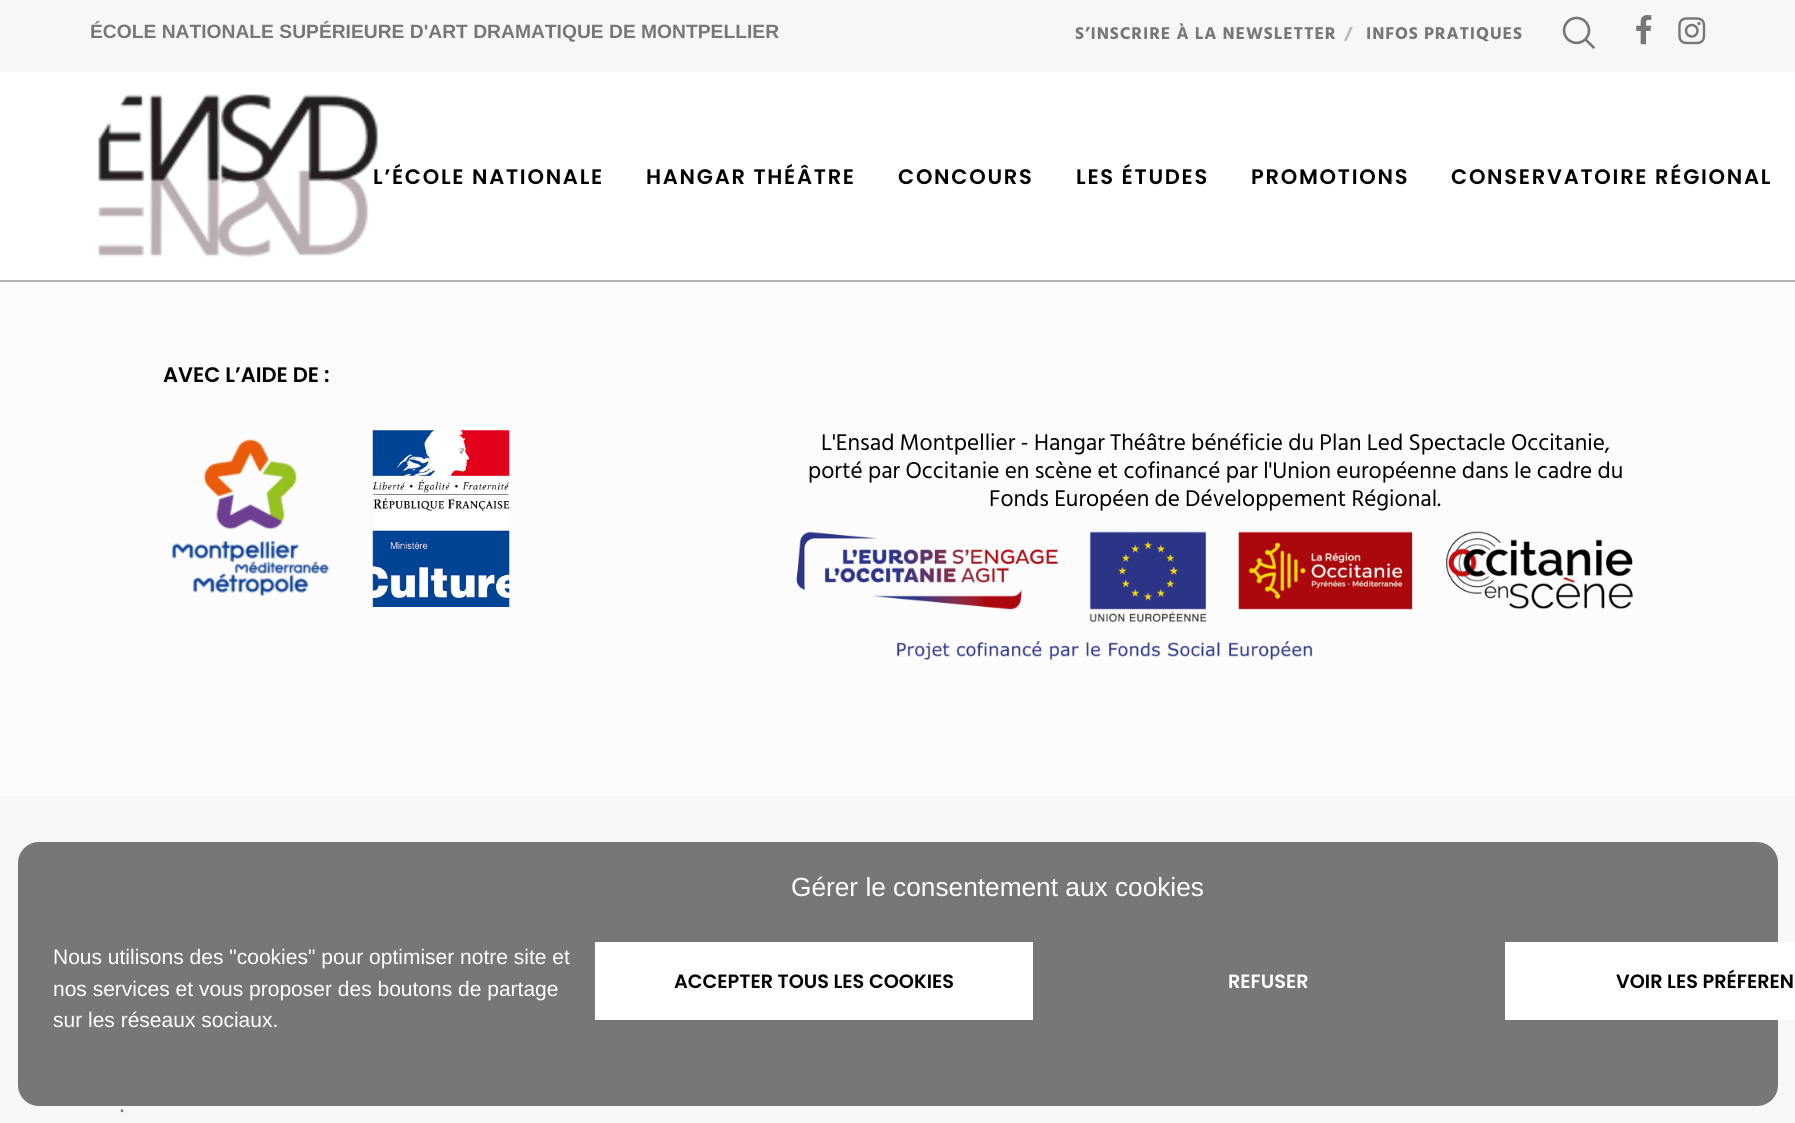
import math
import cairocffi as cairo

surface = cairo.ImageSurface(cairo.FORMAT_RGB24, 1795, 1123)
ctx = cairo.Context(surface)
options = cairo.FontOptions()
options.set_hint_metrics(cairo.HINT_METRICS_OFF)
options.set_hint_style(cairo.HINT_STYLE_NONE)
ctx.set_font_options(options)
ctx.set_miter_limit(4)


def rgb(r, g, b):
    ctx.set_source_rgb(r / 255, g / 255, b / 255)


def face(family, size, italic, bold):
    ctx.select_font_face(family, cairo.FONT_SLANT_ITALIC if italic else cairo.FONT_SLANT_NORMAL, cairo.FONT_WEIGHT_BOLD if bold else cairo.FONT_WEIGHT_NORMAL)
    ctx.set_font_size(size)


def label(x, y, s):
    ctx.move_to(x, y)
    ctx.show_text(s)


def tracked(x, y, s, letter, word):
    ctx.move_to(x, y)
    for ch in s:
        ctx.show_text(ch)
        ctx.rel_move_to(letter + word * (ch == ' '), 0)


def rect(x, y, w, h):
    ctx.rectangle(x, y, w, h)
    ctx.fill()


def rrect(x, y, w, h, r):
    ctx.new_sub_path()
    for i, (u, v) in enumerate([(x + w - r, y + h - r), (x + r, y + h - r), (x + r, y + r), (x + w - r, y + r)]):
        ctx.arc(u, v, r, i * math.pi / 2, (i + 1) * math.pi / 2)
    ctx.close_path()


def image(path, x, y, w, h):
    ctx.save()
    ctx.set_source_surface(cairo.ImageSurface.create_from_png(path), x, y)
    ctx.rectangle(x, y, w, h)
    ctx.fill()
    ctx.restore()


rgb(252, 252, 252)
ctx.paint()
rgb(247, 247, 247)
rect(0, 0, 1795, 72)
face('Liberation Sans', 19.25, 0, 1)
rgb(119, 119, 119)
label(90, 38, 'ÉCOLE NATIONALE SUPÉRIEURE D\'ART DRAMATIQUE DE MONTPELLIER')
face('Hind Siliguri', 17.5, 0, 1)
tracked(1075, 39, 'S’INSCRIRE À LA NEWSLETTER', 0.9, 0)
rgb(183, 183, 183)
tracked(1344, 39, '/', 0.9, 0)
rgb(119, 119, 119)
tracked(1366, 39, 'INFOS PRATIQUES', 0.9, 0)
image('image0.png', 1562, 16, 34, 33)
image('image1.png', 1636, 15, 16, 30)
image('image2.png', 1678, 17, 28, 28)
rgb(255, 255, 255)
rect(0, 72, 1795, 208)
rgb(179, 179, 179)
rect(0, 280, 1795, 2)
face('Poppins SemiBold', 21, 0, 0)
rgb(0, 0, 0)
tracked(373, 184, 'L’ÉCOLE NATIONALE', 1.75, 0)
image('image3.png', 98, 94, 281, 164)
tracked(646, 184, 'HANGAR THÉÂTRE', 1.75, 0)
tracked(898, 184, 'CONCOURS', 1.75, 0)
tracked(1076, 184, 'LES ÉTUDES', 1.75, 0)
tracked(1251, 184, 'PROMOTIONS', 1.75, 0)
tracked(1451, 184, 'CONSERVATOIRE RÉGIONAL', 1.75, 0)
label(163, 382, 'AVEC L’AIDE DE :')
image('image4.png', 172, 439, 158, 158)
image('image5.png', 372, 430, 138, 177)
face('Hind Siliguri', 23.3, 0, 0)
label(821, 450, 'L\'Ensad Montpellier - Hangar Théâtre bénéficie du Plan Led Spectacle Occitanie,')
label(808, 478, 'porté par Occitanie en scène et cofinancé par l\'Union européenne dans le cadre du')
label(989, 506, 'Fonds Européen de Développement Régional.')
image('image6.png', 796, 531, 837, 129)
rgb(247, 247, 247)
rect(0, 796, 1795, 327)
face('Hind Siliguri', 24, 0, 0)
rgb(119, 119, 119)
label(120, 1112, '.')
rrect(18, 842, 1760, 264, 21)
ctx.fill()
face('Liberation Sans', 26.25, 0, 0)
rgb(255, 255, 255)
label(791, 896, 'Gérer le consentement aux cookies')
face('Liberation Sans', 21, 0, 0)
label(53, 964, 'Nous utilisons des "cookies" pour optimiser notre site et')
label(53, 996, 'nos services et vous proposer des boutons de partage')
label(53, 1027, 'sur les réseaux sociaux.')
rect(595, 942, 438, 78)
face('Poppins SemiBold', 19.25, 0, 0)
rgb(0, 0, 0)
label(674, 988, 'ACCEPTER TOUS LES COOKIES')
rgb(255, 255, 255)
label(1228, 988, 'REFUSER')
rect(1505, 942, 290, 78)
rgb(0, 0, 0)
label(1616, 988, 'VOIR LES PRÉFEREN')
surface.write_to_png('render.png')
